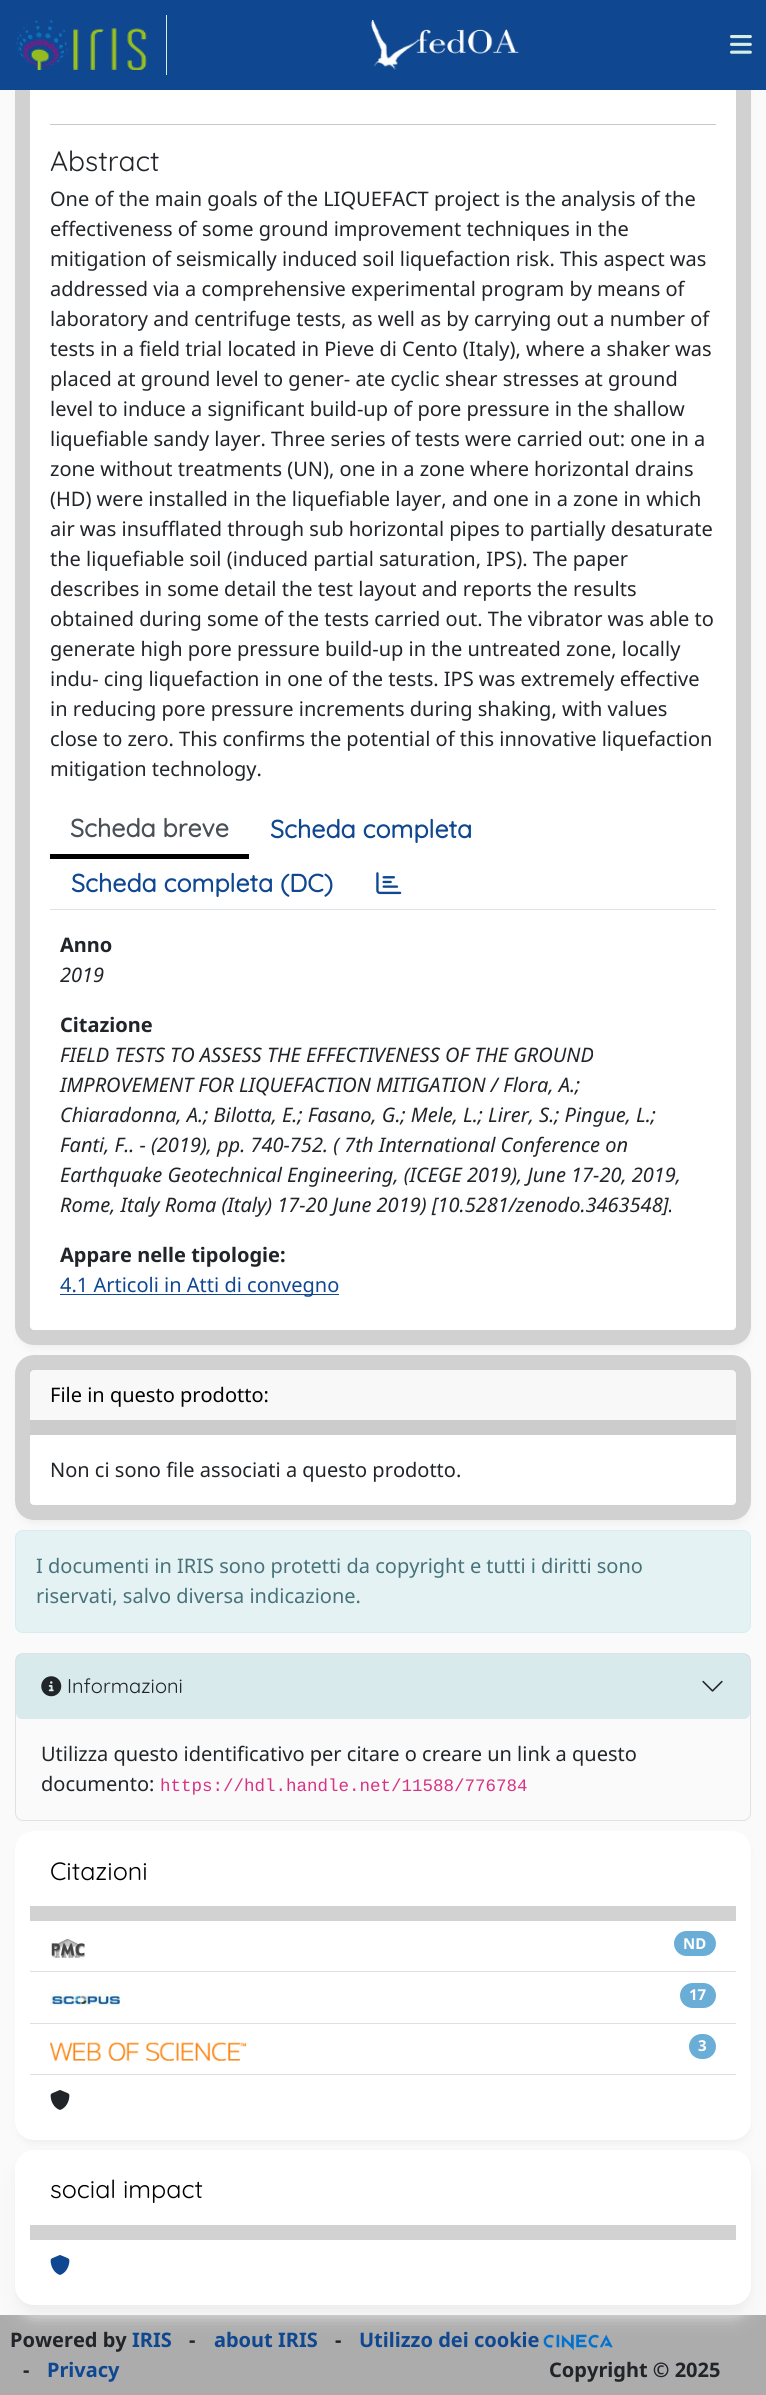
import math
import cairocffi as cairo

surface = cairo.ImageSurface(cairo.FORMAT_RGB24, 766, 2395)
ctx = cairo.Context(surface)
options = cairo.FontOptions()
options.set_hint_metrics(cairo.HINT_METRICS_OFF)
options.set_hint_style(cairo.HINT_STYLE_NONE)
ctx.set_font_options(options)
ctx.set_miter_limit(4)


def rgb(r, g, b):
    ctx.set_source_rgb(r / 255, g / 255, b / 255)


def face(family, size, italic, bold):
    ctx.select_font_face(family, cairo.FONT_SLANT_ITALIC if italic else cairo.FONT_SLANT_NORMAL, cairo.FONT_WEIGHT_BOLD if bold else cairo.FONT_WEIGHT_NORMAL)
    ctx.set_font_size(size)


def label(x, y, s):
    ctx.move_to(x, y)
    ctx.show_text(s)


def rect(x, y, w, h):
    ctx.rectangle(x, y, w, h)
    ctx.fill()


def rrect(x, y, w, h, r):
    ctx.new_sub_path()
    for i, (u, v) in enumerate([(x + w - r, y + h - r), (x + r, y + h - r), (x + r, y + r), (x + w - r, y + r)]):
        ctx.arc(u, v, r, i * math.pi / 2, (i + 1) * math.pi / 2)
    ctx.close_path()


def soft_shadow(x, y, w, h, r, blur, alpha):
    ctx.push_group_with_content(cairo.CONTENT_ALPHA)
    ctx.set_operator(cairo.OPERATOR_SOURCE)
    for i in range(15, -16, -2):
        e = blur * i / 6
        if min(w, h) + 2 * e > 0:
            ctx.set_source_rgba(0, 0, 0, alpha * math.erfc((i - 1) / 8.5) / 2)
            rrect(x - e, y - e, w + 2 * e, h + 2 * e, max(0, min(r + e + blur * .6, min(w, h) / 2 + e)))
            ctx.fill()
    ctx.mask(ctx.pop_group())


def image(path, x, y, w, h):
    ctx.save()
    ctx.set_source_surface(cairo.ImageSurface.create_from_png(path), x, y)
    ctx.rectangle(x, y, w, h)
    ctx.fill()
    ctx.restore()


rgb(251, 250, 250)
ctx.paint()
rgb(238, 238, 238)
soft_shadow(18, -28, 731, 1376, 16, 4, 1)
rgb(255, 255, 255)
rrect(15, -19, 736, 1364, 19)
ctx.fill()
rrect(22.5, -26.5, 721, 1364, 11.5)
ctx.set_source_rgba(0, 0, 0, 0.18)
ctx.set_line_width(15)
ctx.stroke()
rgb(15, 71, 145)
rect(0, 0, 766, 90)
rgb(213, 238, 228)
rect(166, 15, 1, 60)
image('image0.png', 16, 20, 131, 50)
image('image1.png', 371, 20, 148, 50)
image('image2.png', 730, 35, 22, 19)
rgb(200, 201, 202)
rect(50, 124, 666, 1)
face('Quicksand', 28, 0, 0)
rgb(33, 37, 41)
label(50, 171, 'Abstract')
face('Noto Sans', 20, 0, 0)
label(50, 206, 'One of the main goals of the LIQUEFACT project is the analysis of the')
label(50, 236, 'effectiveness of some ground improvement techniques in the')
label(50, 266, 'mitigation of seismically induced soil liquefaction risk. This aspect was')
label(50, 296, 'addressed via a comprehensive experimental program by means of')
label(50, 326, 'laboratory and centrifuge tests, as well as by carrying out a number of')
label(50, 356, 'tests in a field trial located in Pieve di Cento (Italy), where a shaker was')
label(50, 386, 'placed at ground level to gener- ate cyclic shear stresses at ground')
label(50, 416, 'level to induce a significant build-up of pore pressure in the shallow')
label(50, 446, 'liquefiable sandy layer. Three series of tests were carried out: one in a')
label(50, 476, 'zone without treatments (UN), one in a zone where horizontal drains')
label(50, 506, '(HD) were installed in the liquefiable layer, and one in a zone in which')
label(50, 536, 'air was insufflated through sub horizontal pipes to partially desaturate')
label(50, 566, 'the liquefiable soil (induced partial saturation, IPS). The paper')
label(50, 596, 'describes in some detail the test layout and reports the results')
label(50, 626, 'obtained during some of the tests carried out. The vibrator was able to')
label(50, 656, 'generate high pore pressure build-up in the untreated zone, locally')
label(50, 686, 'indu- cing liquefaction in one of the tests. IPS was extremely effective')
label(50, 716, 'in reducing pore pressure increments during shaking, with values')
label(50, 746, 'close to zero. This confirms the potential of this innovative liquefaction')
label(50, 776, 'mitigation technology.')
rgb(222, 226, 230)
rect(50, 909, 666, 1)
rgb(0, 0, 0)
rect(50, 854, 199, 5)
face('Quicksand', 25, 0, 1)
rgb(73, 80, 87)
label(70, 837, 'Scheda breve')
rgb(15, 71, 145)
label(270, 838, 'Scheda completa')
label(71, 892, 'Scheda completa (DC)')
image('image3.png', 376, 872, 26, 23)
face('Noto Sans', 20, 0, 1)
rgb(33, 37, 41)
label(60, 952, 'Anno')
face('Noto Sans', 20, 1, 0)
label(60, 982, '2019')
face('Noto Sans', 20, 0, 1)
label(60, 1032, 'Citazione')
face('Noto Sans', 20, 1, 0)
label(60, 1062, 'FIELD TESTS TO ASSESS THE EFFECTIVENESS OF THE GROUND')
label(60, 1092, 'IMPROVEMENT FOR LIQUEFACTION MITIGATION / Flora, A.;')
label(60, 1122, 'Chiaradonna, A.; Bilotta, E.; Fasano, G.; Mele, L.; Lirer, S.; Pingue, L.;')
label(60, 1152, 'Fanti, F.. - (2019), pp. 740-752. ( 7th International Conference on')
label(60, 1182, 'Earthquake Geotechnical Engineering, (ICEGE 2019), June 17-20, 2019,')
label(60, 1212, 'Rome, Italy Roma (Italy) 17-20 June 2019) [10.5281/zenodo.3463548].')
face('Noto Sans', 20, 0, 1)
label(60, 1262, 'Appare nelle tipologie:')
rgb(15, 71, 145)
rect(60, 1294, 279, 1)
face('Noto Sans', 20, 0, 0)
label(60, 1292, '4.1 Articoli in Atti di convegno')
rgb(238, 238, 238)
soft_shadow(18, 1363, 731, 160, 16, 4, 1)
rgb(255, 255, 255)
rrect(15, 1355, 736, 165, 19)
ctx.fill()
rrect(22.5, 1362.5, 721, 150, 11.5)
ctx.set_source_rgba(0, 0, 0, 0.18)
ctx.stroke()
ctx.set_source_rgba(0, 0, 0, 0.03)
rect(30, 1370, 706, 50)
rgb(204, 204, 204)
rect(30, 1420, 706, 15)
rgb(0, 0, 0)
label(50, 1402, 'File in questo prodotto:')
rgb(33, 37, 41)
label(50, 1477, 'Non ci sono file associati a questo prodotto.')
rgb(228, 242, 244)
rrect(15.5, 1530.5, 735, 102, 7.5)
ctx.fill_preserve()
rgb(214, 236, 239)
ctx.set_line_width(1)
ctx.stroke()
rgb(71, 114, 121)
label(36, 1573, 'I documenti in IRIS sono protetti da copyright e tutti i diritti sono')
label(36, 1603, 'riservati, salvo diversa indicazione.')
rrect(15.5, 1653.5, 735, 167, 7.5)
rgb(222, 226, 230)
ctx.stroke()
ctx.set_source_rgba(0.467, 0.745, 0.792, 0.25)
rrect(16, 1654, 734, 65, 6)
ctx.fill()
image('image4.png', 41, 1676, 21, 21)
face('Quicksand', 20, 0, 0)
rgb(33, 37, 41)
label(67, 1693, 'Informazioni')
image('image5.png', 702, 1680, 21, 12)
face('Noto Sans', 20, 0, 0)
label(41, 1761, 'Utilizza questo identificativo per citare o creare un link a questo')
label(41, 1791, 'documento:')
face('Liberation Mono', 17.5, 0, 0)
rgb(214, 51, 132)
label(160, 1791, 'https://hdl.handle.net/11588/776784')
rgb(238, 238, 238)
soft_shadow(18, 1839, 731, 304, 16, 4, 1)
rgb(255, 255, 255)
rrect(22.5, 1838.5, 721, 294, 11.5)
ctx.fill_preserve()
ctx.set_line_width(15)
ctx.stroke()
rgb(210, 210, 210)
rect(30, 1906, 706, 15)
face('Quicksand', 25, 0, 0)
rgb(0, 0, 0)
label(50, 1880, 'Citazioni')
rgb(223, 223, 223)
rect(30, 1971, 706, 1)
image('image6.png', 51, 1938, 34, 20)
rgb(106, 173, 215)
rrect(674, 1931, 42, 25, 12.5)
ctx.fill()
face('Noto Sans', 15, 0, 1)
rgb(255, 255, 255)
label(683, 1949, 'ND')
rgb(223, 223, 223)
rect(30, 2023, 706, 1)
image('image7.png', 50, 1990, 70, 16)
rgb(106, 173, 215)
rrect(680, 1983, 36, 25, 12.5)
ctx.fill()
rgb(255, 255, 255)
label(689, 2000, '17')
rgb(223, 223, 223)
rect(30, 2074, 706, 1)
image('image8.png', 50, 2042, 197, 19)
rgb(106, 173, 215)
rrect(689, 2034, 27, 25, 12.5)
ctx.fill()
rgb(255, 255, 255)
label(698, 2051, '3')
image('image9.png', 50, 2090, 20, 20)
rgb(172, 172, 172)
rect(0, 2315, 766, 80)
rgb(238, 238, 238)
soft_shadow(18, 2158, 731, 150, 16, 4, 1)
image('image11.png', 543, 2334, 70, 16)
soft_shadow(19, 2166, 729, 148, 15, 9.5, 1)
rgb(255, 255, 255)
rrect(22.5, 2157.5, 721, 140, 11.5)
ctx.fill_preserve()
ctx.stroke()
rgb(210, 210, 210)
rect(30, 2225, 706, 15)
face('Quicksand', 25, 0, 0)
rgb(0, 0, 0)
label(50, 2198, 'social impact')
image('image10.png', 50, 2255, 20, 20)
face('Noto Sans', 20, 0, 1)
rgb(33, 37, 41)
label(10, 2347, 'Powered by')
rgb(15, 71, 145)
label(132, 2347, 'IRIS')
rgb(33, 37, 41)
label(189, 2347, '-')
rgb(15, 71, 145)
label(214, 2347, 'about IRIS')
rgb(33, 37, 41)
label(335, 2347, '-')
rgb(15, 71, 145)
label(359, 2347, 'Utilizzo dei cookie')
rgb(33, 37, 41)
label(23, 2377, '-')
rgb(15, 71, 145)
label(47, 2377, 'Privacy')
rgb(33, 37, 41)
label(549, 2377, 'Copyright © 2025')
surface.write_to_png('render.png')
